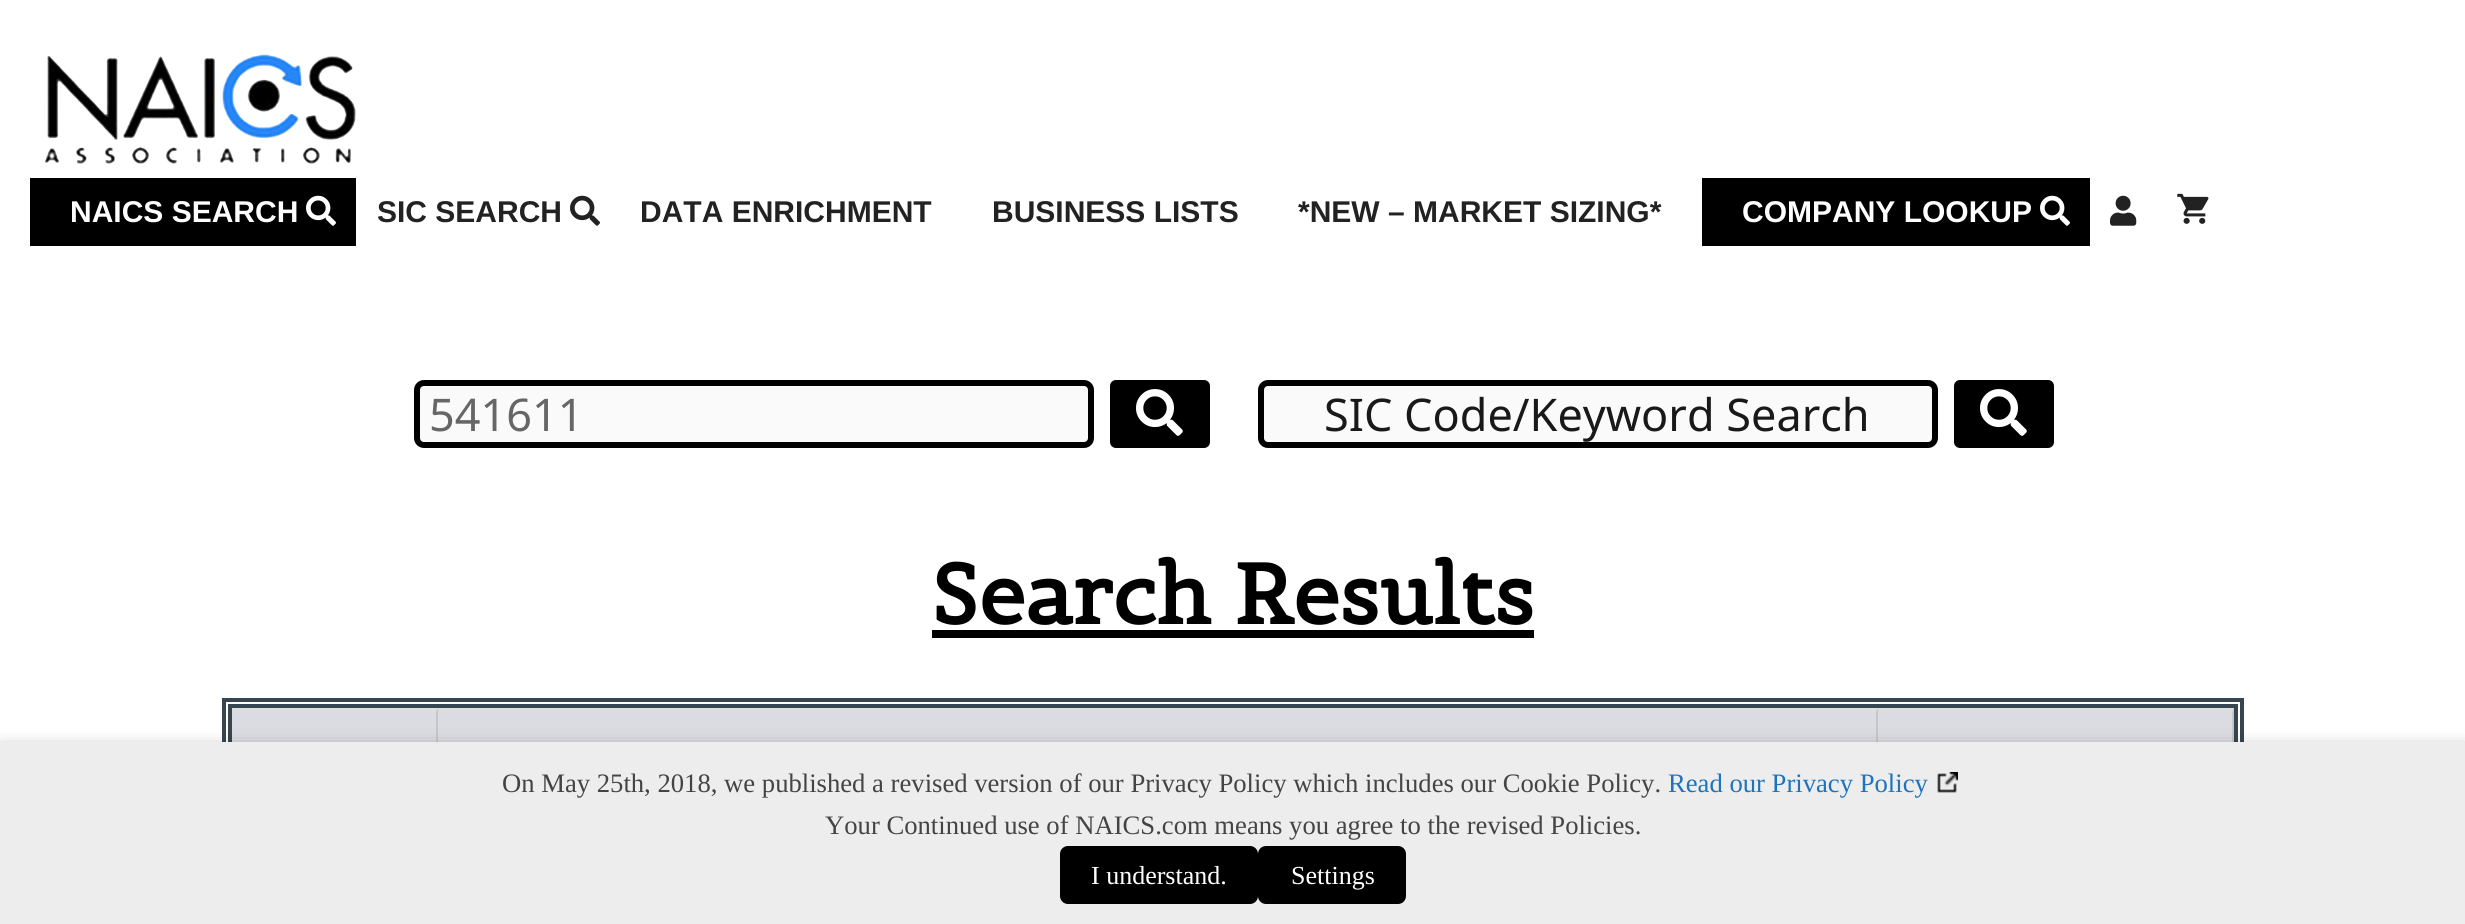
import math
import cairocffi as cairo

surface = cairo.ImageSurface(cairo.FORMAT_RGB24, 2465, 924)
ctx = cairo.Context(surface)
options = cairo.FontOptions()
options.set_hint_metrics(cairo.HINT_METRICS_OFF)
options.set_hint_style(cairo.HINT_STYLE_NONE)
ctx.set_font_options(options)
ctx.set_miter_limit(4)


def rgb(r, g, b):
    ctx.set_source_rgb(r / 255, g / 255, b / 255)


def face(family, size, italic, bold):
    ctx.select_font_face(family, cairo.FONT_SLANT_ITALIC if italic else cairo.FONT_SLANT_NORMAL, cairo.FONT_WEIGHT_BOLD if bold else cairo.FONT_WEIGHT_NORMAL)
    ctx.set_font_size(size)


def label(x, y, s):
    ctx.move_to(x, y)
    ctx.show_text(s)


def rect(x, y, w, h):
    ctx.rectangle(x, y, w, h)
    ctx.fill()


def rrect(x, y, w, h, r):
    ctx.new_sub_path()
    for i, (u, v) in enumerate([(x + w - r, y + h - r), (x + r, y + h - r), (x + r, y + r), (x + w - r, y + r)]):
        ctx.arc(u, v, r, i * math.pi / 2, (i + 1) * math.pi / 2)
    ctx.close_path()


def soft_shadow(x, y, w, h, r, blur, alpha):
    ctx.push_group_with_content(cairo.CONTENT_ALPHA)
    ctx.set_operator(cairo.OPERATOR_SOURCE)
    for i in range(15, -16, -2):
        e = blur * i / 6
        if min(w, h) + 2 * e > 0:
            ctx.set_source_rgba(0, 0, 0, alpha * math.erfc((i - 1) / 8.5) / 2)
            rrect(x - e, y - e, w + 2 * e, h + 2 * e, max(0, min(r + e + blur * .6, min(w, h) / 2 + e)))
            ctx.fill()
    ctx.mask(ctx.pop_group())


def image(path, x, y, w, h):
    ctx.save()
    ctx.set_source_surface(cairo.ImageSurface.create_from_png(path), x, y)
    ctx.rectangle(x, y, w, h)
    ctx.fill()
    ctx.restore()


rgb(255, 255, 255)
ctx.paint()
image('image0.png', 45, 54, 311, 110)
rgb(0, 0, 0)
rect(30, 178, 326, 68)
face('Liberation Sans', 30, 0, 1)
rgb(255, 255, 255)
label(70, 222, 'NAICS SEARCH')
image('image1.png', 306, 195, 30, 31)
rgb(34, 34, 34)
label(377, 222, 'SIC SEARCH')
image('image2.png', 570, 195, 30, 31)
label(640, 222, 'DATA ENRICHMENT')
label(992, 222, 'BUSINESS LISTS')
label(1298, 222, '*NEW – MARKET SIZING*')
rgb(0, 0, 0)
rect(1702, 178, 388, 68)
rgb(255, 255, 255)
label(1742, 222, 'COMPANY LOOKUP')
image('image1.png', 2040, 195, 30, 31)
image('image3.png', 2110, 195, 27, 31)
image('image4.png', 2177, 193, 32, 31)
rgb(250, 250, 250)
rrect(417, 383, 674, 62, 7)
ctx.fill_preserve()
rgb(0, 0, 0)
ctx.set_line_width(6)
ctx.stroke()
face('Noto Sans', 45, 0, 0)
rgb(102, 102, 102)
label(429, 431, '541611')
rgb(0, 0, 0)
rrect(1110, 380, 100, 68, 6)
ctx.fill()
image('image5.png', 1136, 389, 47, 47)
rgb(250, 250, 250)
rrect(1261, 383, 674, 62, 7)
ctx.fill_preserve()
rgb(0, 0, 0)
ctx.stroke()
rgb(25, 25, 25)
label(1324, 431, 'SIC Code/Keyword Search')
rgb(0, 0, 0)
rrect(1954, 380, 100, 68, 6)
ctx.fill()
image('image5.png', 1980, 389, 47, 47)
face('Belgrano', 84, 0, 1)
label(931, 624, 'Search Results')
rect(932, 630, 602, 8)
ctx.rectangle(224, 700, 2018, 186)
rgb(54, 69, 79)
ctx.set_line_width(4)
ctx.stroke()
ctx.rectangle(230, 706, 2006, 174)
ctx.stroke()
rgb(219, 219, 226)
rect(232, 708, 2002, 34)
rgb(221, 221, 221)
ctx.new_path()
ctx.move_to(232, 708)
ctx.line_to(438, 708)
ctx.line_to(436, 712)
ctx.line_to(232, 712)
ctx.close_path()
ctx.fill()
rgb(197, 197, 203)
ctx.new_path()
ctx.move_to(438, 708)
ctx.line_to(438, 804)
ctx.line_to(436, 802)
ctx.line_to(436, 712)
ctx.close_path()
ctx.fill()
rgb(221, 221, 221)
ctx.new_path()
ctx.move_to(438, 708)
ctx.line_to(1878, 708)
ctx.line_to(1876, 712)
ctx.line_to(438, 712)
ctx.close_path()
ctx.fill()
rgb(197, 197, 203)
ctx.new_path()
ctx.move_to(1878, 708)
ctx.line_to(1878, 804)
ctx.line_to(1876, 802)
ctx.line_to(1876, 712)
ctx.close_path()
ctx.fill()
rgb(221, 221, 221)
ctx.new_path()
ctx.move_to(1878, 708)
ctx.line_to(2234, 708)
ctx.line_to(2232, 712)
ctx.line_to(1878, 712)
ctx.close_path()
ctx.fill()
rgb(197, 197, 203)
ctx.new_path()
ctx.move_to(2234, 708)
ctx.line_to(2234, 804)
ctx.line_to(2232, 802)
ctx.line_to(2232, 712)
ctx.close_path()
ctx.fill()
rgb(0, 0, 0)
soft_shadow(0, 752, 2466, 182, 0, 10, 0.5)
rgb(237, 237, 237)
rect(0, 742, 2465, 182)
face('Liberation Serif', 26.65, 0, 0)
rgb(68, 68, 68)
label(502, 792, 'On May 25th, 2018, we published a revised version of our Privacy Policy which includes our Cookie Policy.')
rgb(30, 115, 190)
label(1668, 792, 'Read our Privacy Policy')
image('image6.png', 1937, 772, 21, 21)
rgb(68, 68, 68)
label(825, 834, 'Your Continued use of NAICS.com means you agree to the revised Policies.')
rgb(0, 0, 0)
rrect(1060, 846, 198, 58, 8)
ctx.fill()
face('Liberation Serif', 26, 0, 0)
rgb(255, 255, 255)
label(1091, 884, 'I understand.')
rgb(0, 0, 0)
rrect(1258, 846, 148, 58, 8)
ctx.fill()
rgb(255, 255, 255)
label(1291, 884, 'Settings')
surface.write_to_png('render.png')
